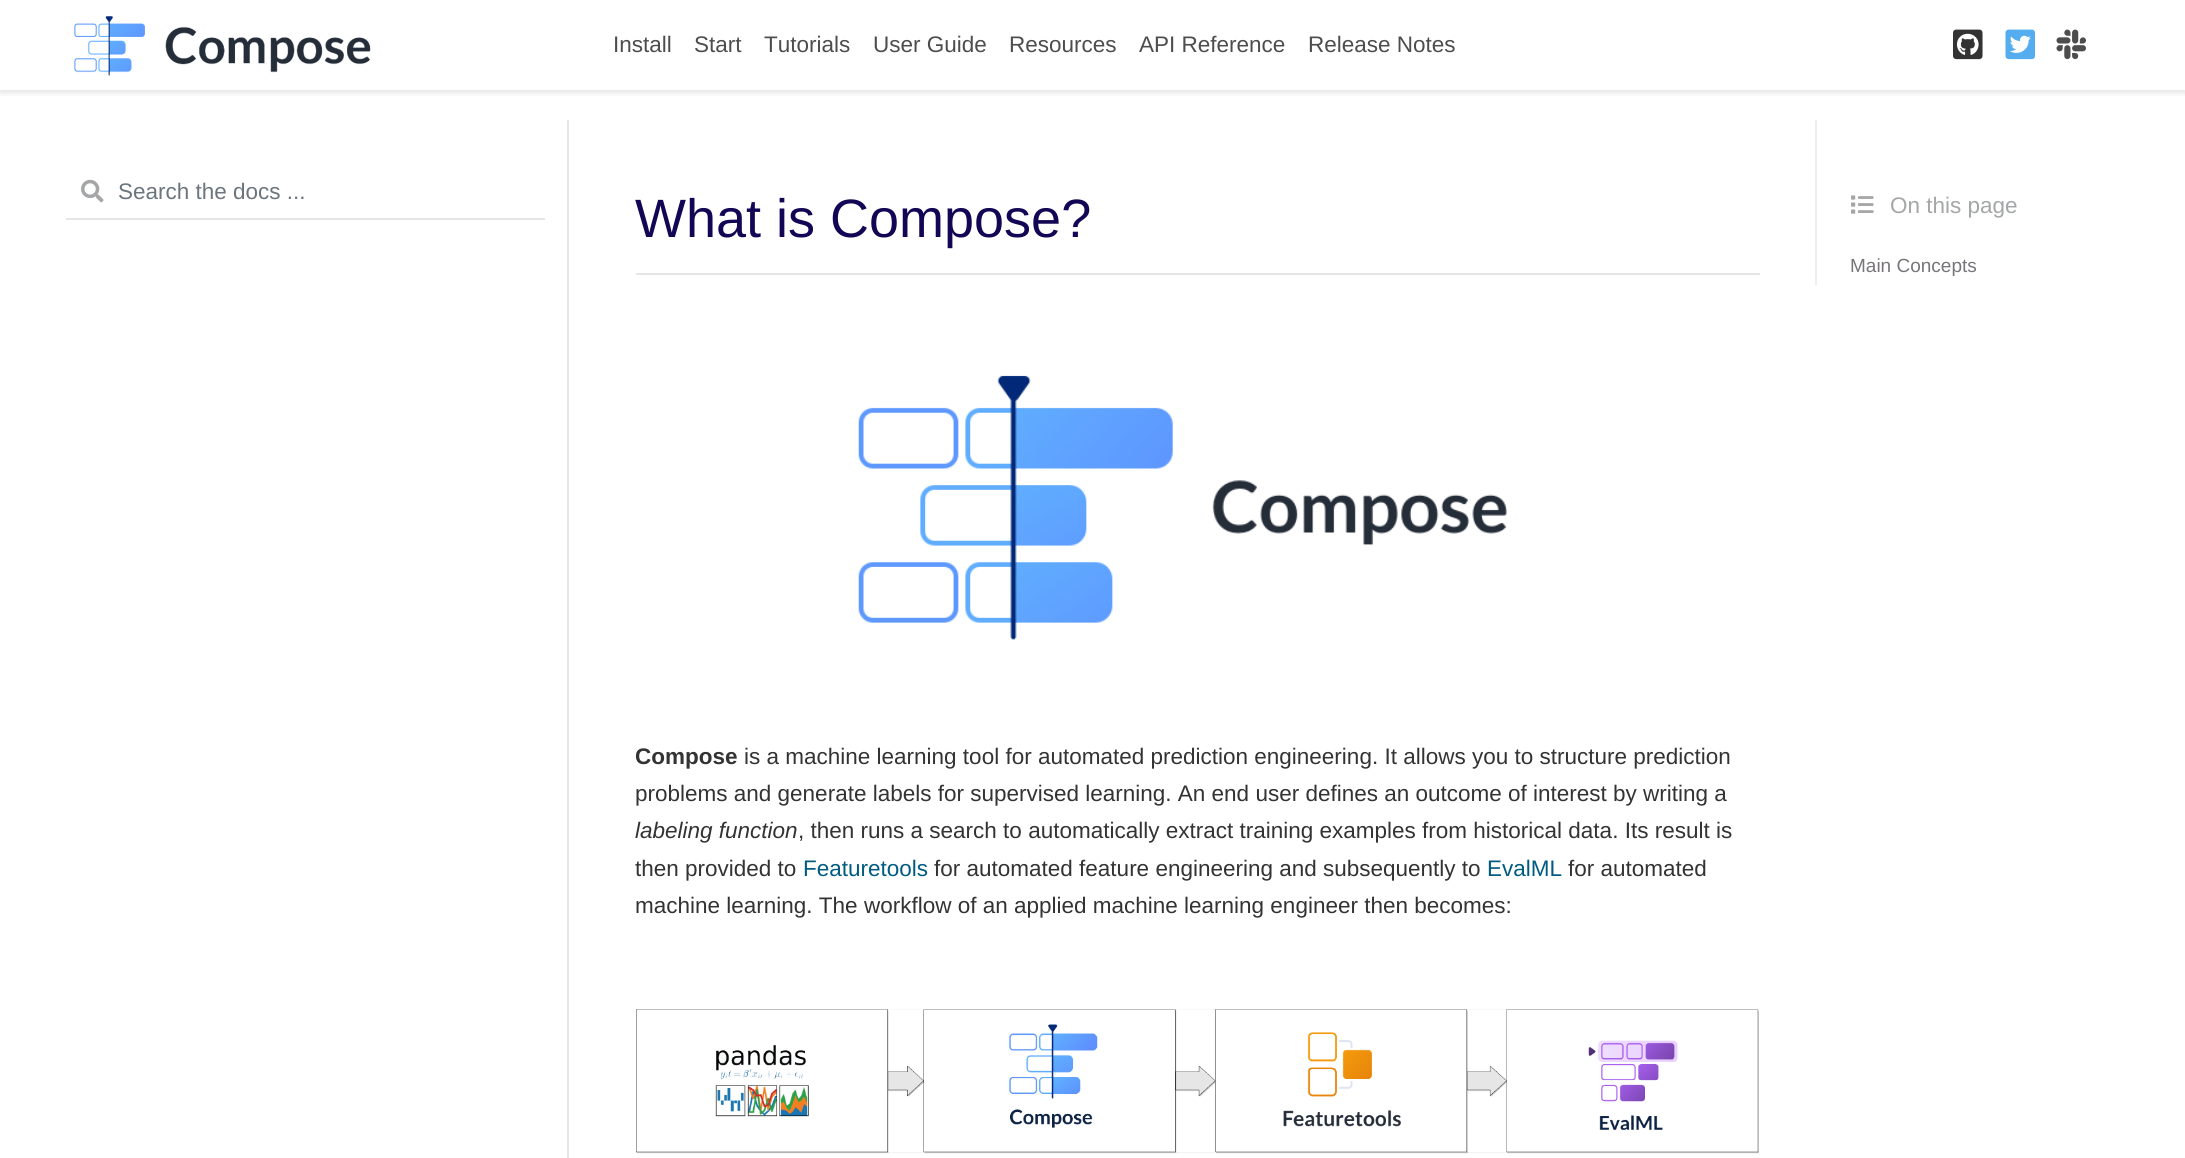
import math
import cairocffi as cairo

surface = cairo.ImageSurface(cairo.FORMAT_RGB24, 2185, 1158)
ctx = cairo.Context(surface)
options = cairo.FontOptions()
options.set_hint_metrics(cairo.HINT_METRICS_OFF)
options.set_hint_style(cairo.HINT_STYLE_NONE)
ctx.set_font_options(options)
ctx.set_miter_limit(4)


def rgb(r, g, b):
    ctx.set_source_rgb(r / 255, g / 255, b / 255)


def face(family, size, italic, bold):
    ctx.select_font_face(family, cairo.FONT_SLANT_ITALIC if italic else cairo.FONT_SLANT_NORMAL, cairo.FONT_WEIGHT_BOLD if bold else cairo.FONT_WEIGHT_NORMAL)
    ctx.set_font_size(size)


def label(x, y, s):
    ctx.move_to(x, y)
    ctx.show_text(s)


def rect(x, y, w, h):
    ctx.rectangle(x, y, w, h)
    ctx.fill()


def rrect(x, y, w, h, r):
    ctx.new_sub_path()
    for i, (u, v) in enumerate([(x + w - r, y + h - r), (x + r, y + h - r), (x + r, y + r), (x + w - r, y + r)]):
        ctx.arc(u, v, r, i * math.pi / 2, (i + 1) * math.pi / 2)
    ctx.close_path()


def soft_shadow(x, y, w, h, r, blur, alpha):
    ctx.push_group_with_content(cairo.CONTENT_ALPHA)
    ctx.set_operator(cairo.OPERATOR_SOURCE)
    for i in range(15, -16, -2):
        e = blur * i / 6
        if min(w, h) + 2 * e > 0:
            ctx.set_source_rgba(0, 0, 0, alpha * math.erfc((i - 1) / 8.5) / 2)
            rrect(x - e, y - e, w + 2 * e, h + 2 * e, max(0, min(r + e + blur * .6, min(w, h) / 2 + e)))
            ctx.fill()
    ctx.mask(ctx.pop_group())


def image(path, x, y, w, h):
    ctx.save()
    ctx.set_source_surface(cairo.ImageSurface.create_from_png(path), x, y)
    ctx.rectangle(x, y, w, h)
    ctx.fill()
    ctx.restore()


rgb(255, 255, 255)
ctx.paint()
ctx.save()
ctx.rectangle(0, 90, 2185, 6)
ctx.clip()
rgb(0, 0, 0)
soft_shadow(0, 3, 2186, 90, 0, 3, 0.11)
ctx.restore()
image('image0.png', 74, 16, 297, 60)
face('Liberation Sans', 22.5, 0, 0)
rgb(77, 77, 77)
label(613, 52, 'Install')
label(694, 52, 'Start')
label(764, 52, 'Tutorials')
label(873, 52, 'User Guide')
label(1009, 52, 'Resources')
label(1139, 52, 'API Reference')
label(1308, 52, 'Release Notes')
image('image1.png', 1953, 29, 30, 31)
image('image2.png', 2005, 29, 31, 31)
image('image3.png', 2056, 29, 30, 31)
rgb(230, 230, 230)
rect(567, 120, 2, 1038)
image('image4.png', 81, 179, 23, 24)
rgb(229, 229, 229)
rect(66, 218, 479, 2)
rgb(108, 117, 125)
label(118, 199, 'Search the docs ...')
face('Liberation Sans', 54, 0, 0)
rgb(19, 6, 84)
label(635, 237, 'What is Compose?')
rgb(229, 229, 229)
rect(636, 273, 1124, 2)
image('image5.png', 858, 375, 649, 265)
face('Liberation Sans', 22.5, 0, 1)
rgb(51, 51, 51)
label(635, 764, 'Compose')
face('Liberation Sans', 22.5, 0, 0)
label(744, 764, 'is a machine learning tool for automated prediction engineering. It allows you to structure prediction')
label(635, 801, 'problems and generate labels for supervised learning. An end user defines an outcome of interest by writing a')
face('Liberation Sans', 22.5, 1, 0)
label(635, 838, 'labeling function')
face('Liberation Sans', 22.5, 0, 0)
label(798, 838, ', then runs a search to automatically extract training examples from historical data. Its result is')
label(635, 876, 'then provided to')
rgb(0, 91, 129)
label(803, 876, 'Featuretools')
rgb(51, 51, 51)
label(934, 876, 'for automated feature engineering and subsequently to')
rgb(0, 91, 129)
label(1487, 876, 'EvalML')
rgb(51, 51, 51)
label(1568, 876, 'for automated')
label(635, 913, 'machine learning. The workflow of an applied machine learning engineer then becomes:')
image('image6.png', 636, 1009, 1123, 145)
rgb(238, 238, 238)
rect(1815, 120, 2, 165)
image('image7.png', 1851, 195, 23, 19)
rgb(164, 166, 167)
label(1890, 213, 'On this page')
face('Liberation Sans', 19, 0, 0)
rgb(119, 117, 122)
label(1850, 272, 'Main Concepts')
surface.write_to_png('render.png')
